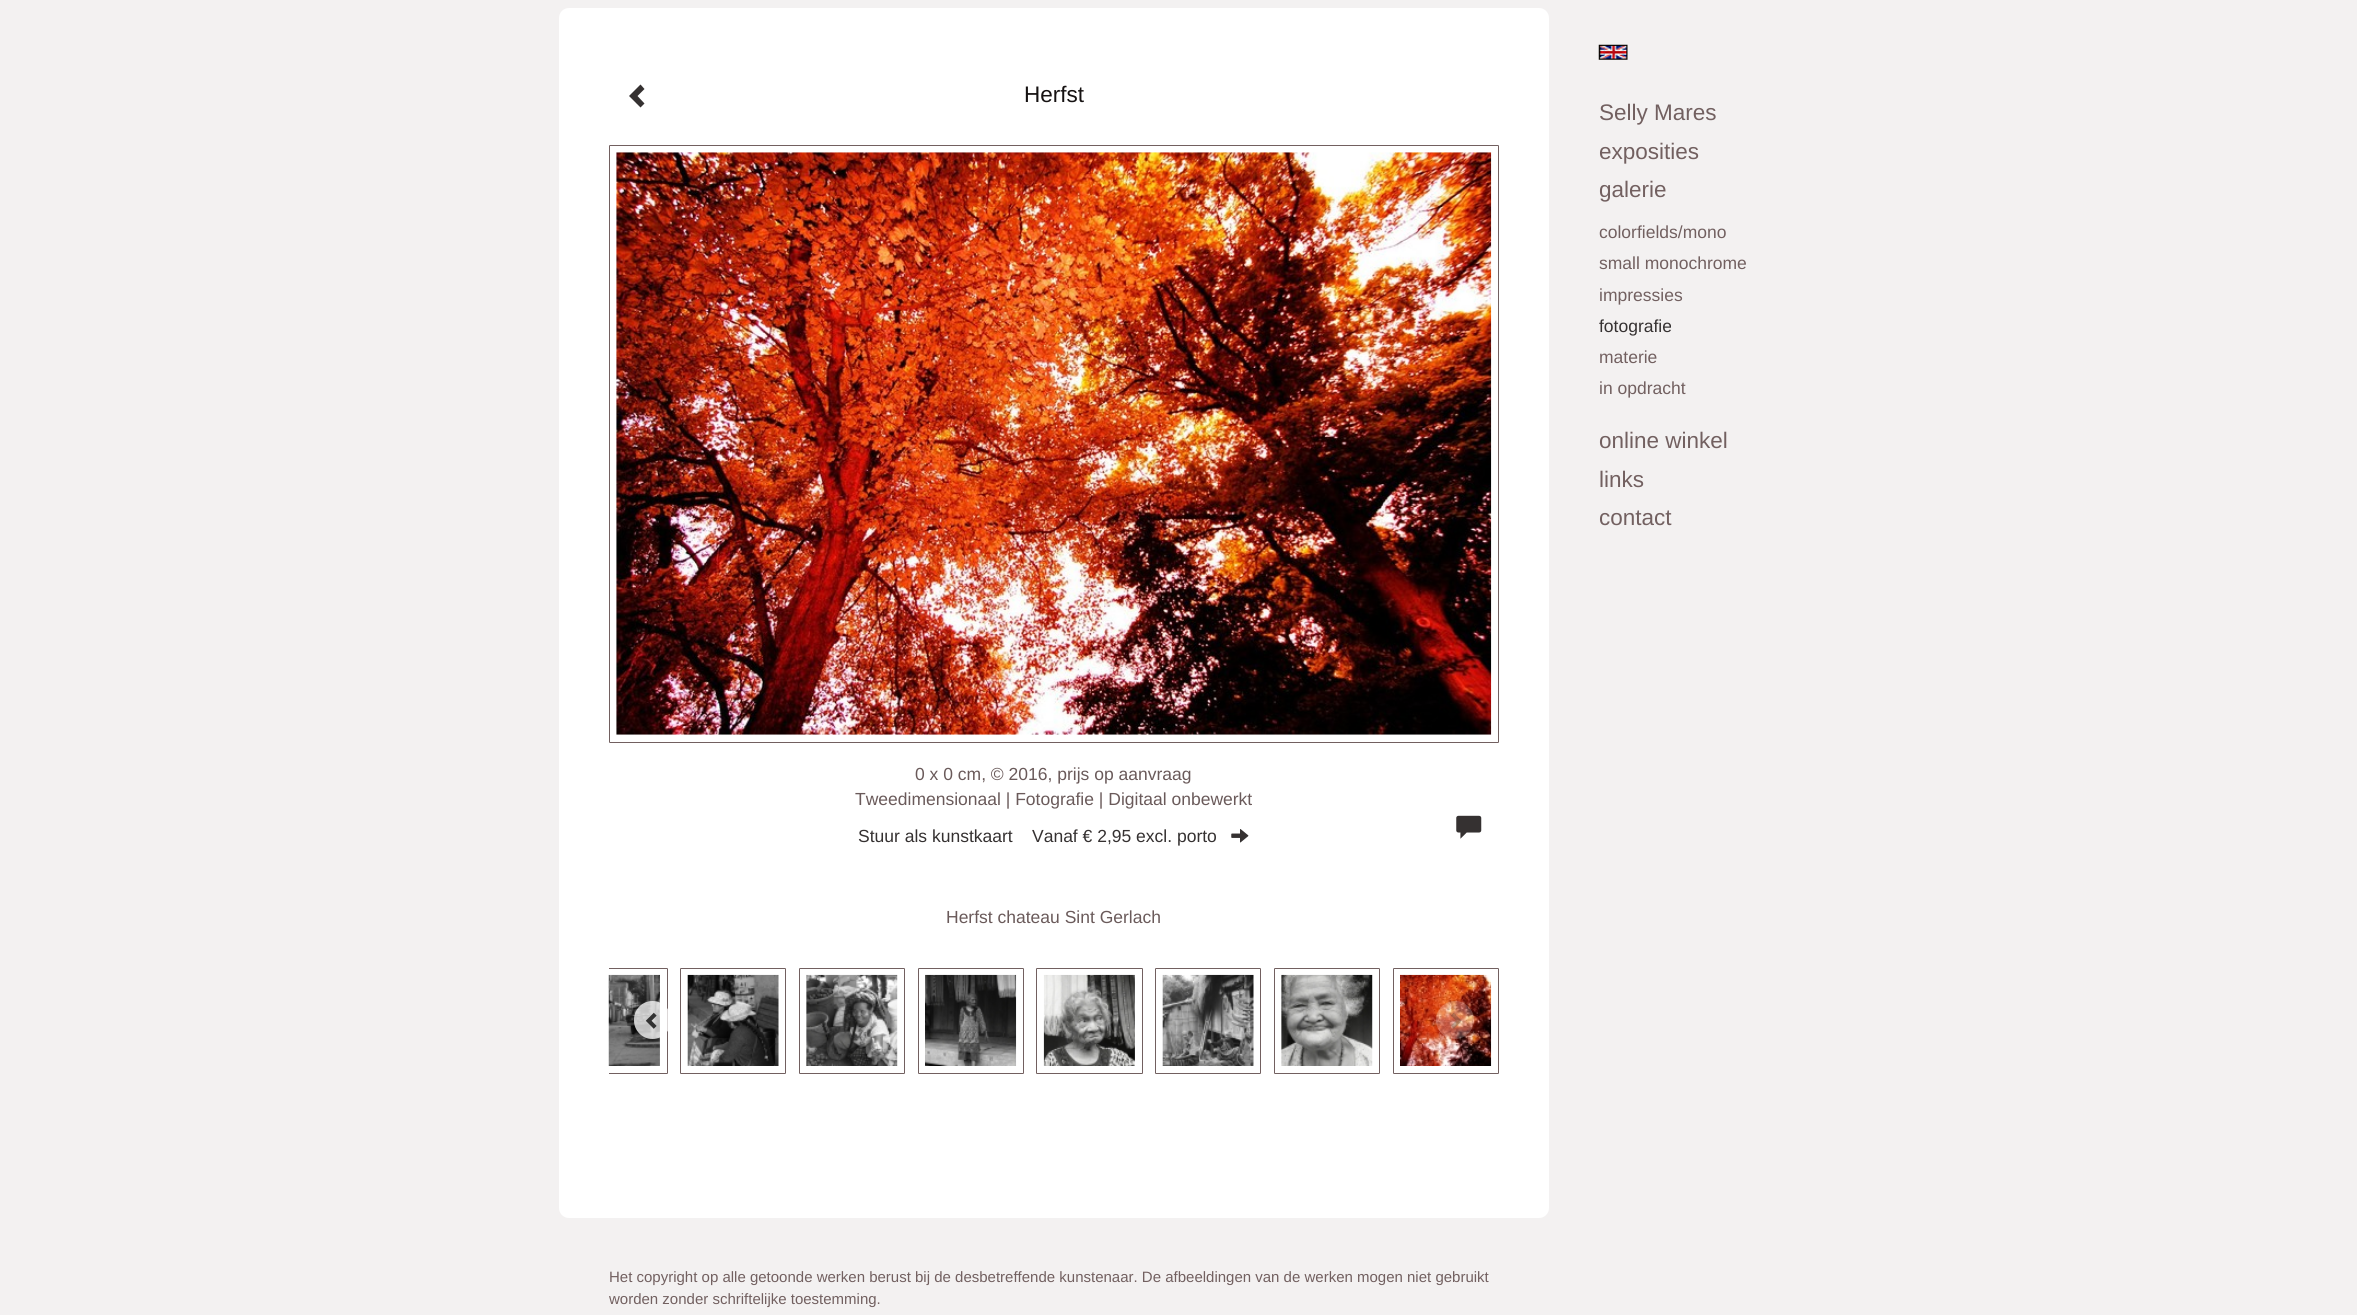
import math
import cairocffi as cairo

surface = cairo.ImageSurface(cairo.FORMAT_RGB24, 2357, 1315)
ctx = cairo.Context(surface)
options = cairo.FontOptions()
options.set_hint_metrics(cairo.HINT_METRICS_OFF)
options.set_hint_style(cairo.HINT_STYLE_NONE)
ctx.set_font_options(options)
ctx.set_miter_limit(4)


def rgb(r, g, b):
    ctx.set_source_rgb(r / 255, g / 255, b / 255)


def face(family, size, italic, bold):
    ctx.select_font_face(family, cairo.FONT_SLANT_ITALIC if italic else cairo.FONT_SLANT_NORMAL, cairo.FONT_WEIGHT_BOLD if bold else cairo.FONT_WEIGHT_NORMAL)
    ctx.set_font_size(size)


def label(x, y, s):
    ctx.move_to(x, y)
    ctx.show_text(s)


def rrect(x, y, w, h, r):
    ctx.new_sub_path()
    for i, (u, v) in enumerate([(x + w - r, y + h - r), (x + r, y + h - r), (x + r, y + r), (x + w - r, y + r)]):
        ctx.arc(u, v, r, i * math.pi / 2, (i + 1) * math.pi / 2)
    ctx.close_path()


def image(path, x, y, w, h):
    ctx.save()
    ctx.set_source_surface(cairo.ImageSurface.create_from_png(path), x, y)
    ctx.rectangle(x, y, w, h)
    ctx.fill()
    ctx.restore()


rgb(243, 241, 241)
ctx.paint()
rgb(255, 255, 255)
rrect(559, 8, 990, 1210, 10)
ctx.fill()
rgb(53, 49, 49)
ctx.new_path()
ctx.move_to(644.5, 89)
ctx.line_to(637.5, 96)
ctx.line_to(644.5, 103.5)
ctx.line_to(640.5, 107.5)
ctx.line_to(629, 96)
ctx.line_to(640.5, 84.5)
ctx.close_path()
ctx.fill()
face('Liberation Sans', 22.5, 0, 0)
rgb(22, 18, 18)
label(1024, 102, 'Herfst')
rrect(609.5, 145.5, 889, 597, 0.5)
rgb(114, 96, 96)
ctx.set_line_width(1)
ctx.stroke()
image('image0.png', 616, 152, 876, 583)
face('Liberation Sans', 17.5, 0, 0)
rgb(106, 90, 90)
label(915, 780, '0 x 0 cm, © 2016, prijs op aanvraag')
label(855, 805, 'Tweedimensionaal | Fotografie | Digitaal onbewerkt')
rgb(53, 49, 49)
label(858, 842, 'Stuur als kunstkaart')
label(1032, 842, 'Vanaf € 2,95 excl. porto')
image('image1.png', 1231, 829, 18, 14)
image('image2.png', 1456, 815, 26, 24)
rgb(106, 90, 90)
label(946, 923, 'Herfst chateau Sint Gerlach')
ctx.save()
ctx.rectangle(609, 961, 890, 119)
ctx.clip()
rrect(561.5, 968.5, 106, 105, 0.5)
rgb(114, 96, 96)
ctx.stroke()
ctx.restore()
image('image3.png', 608, 974, 52, 92)
rrect(680.5, 968.5, 105, 105, 0.5)
rgb(114, 96, 96)
ctx.stroke()
image('image4.png', 687, 974, 92, 92)
rrect(799.5, 968.5, 105, 105, 0.5)
ctx.stroke()
image('image5.png', 806, 974, 92, 92)
rrect(918.5, 968.5, 105, 105, 0.5)
ctx.stroke()
image('image6.png', 925, 974, 92, 92)
rrect(1036.5, 968.5, 106, 105, 0.5)
ctx.stroke()
image('image7.png', 1043, 974, 92, 92)
rrect(1155.5, 968.5, 105, 105, 0.5)
ctx.stroke()
image('image8.png', 1162, 974, 92, 92)
rrect(1274.5, 968.5, 105, 105, 0.5)
ctx.stroke()
image('image9.png', 1281, 974, 92, 92)
rrect(1393.5, 968.5, 105, 105, 0.5)
ctx.stroke()
image('image10.png', 1400, 974, 92, 92)
ctx.set_source_rgba(1, 1, 1, 0.75)
rrect(634, 1001, 37, 38, 18.5)
ctx.fill()
image('image11.png', 645, 1012, 12, 17)
ctx.set_source_rgba(1, 1, 1, 0.22)
ctx.arc(1455, 1020, 19, 0, 2 * math.pi)
ctx.fill()
image('image12.png', 1451, 1013, 11, 16)
image('image13.png', 1598, 44, 30, 16)
face('Liberation Sans', 22.5, 0, 0)
rgb(114, 96, 96)
label(1599, 120, 'Selly Mares')
label(1599, 159, 'exposities')
label(1599, 197, 'galerie')
face('Liberation Sans', 17.5, 0, 0)
label(1599, 238, 'colorfields/mono')
label(1599, 269, 'small monochrome')
label(1599, 301, 'impressies')
rgb(53, 49, 49)
label(1599, 332, 'fotografie')
rgb(114, 96, 96)
label(1599, 363, 'materie')
label(1599, 394, 'in opdracht')
face('Liberation Sans', 22.5, 0, 0)
label(1599, 448, 'online winkel')
label(1599, 487, 'links')
label(1599, 525, 'contact')
face('Liberation Sans', 15, 0, 0)
label(609, 1282, 'Het copyright op alle getoonde werken berust bij de desbetreffende kunstenaar. De afbeeldingen van de werken mogen niet gebruikt')
label(609, 1304, 'worden zonder schriftelijke toestemming.')
surface.write_to_png('render.png')
